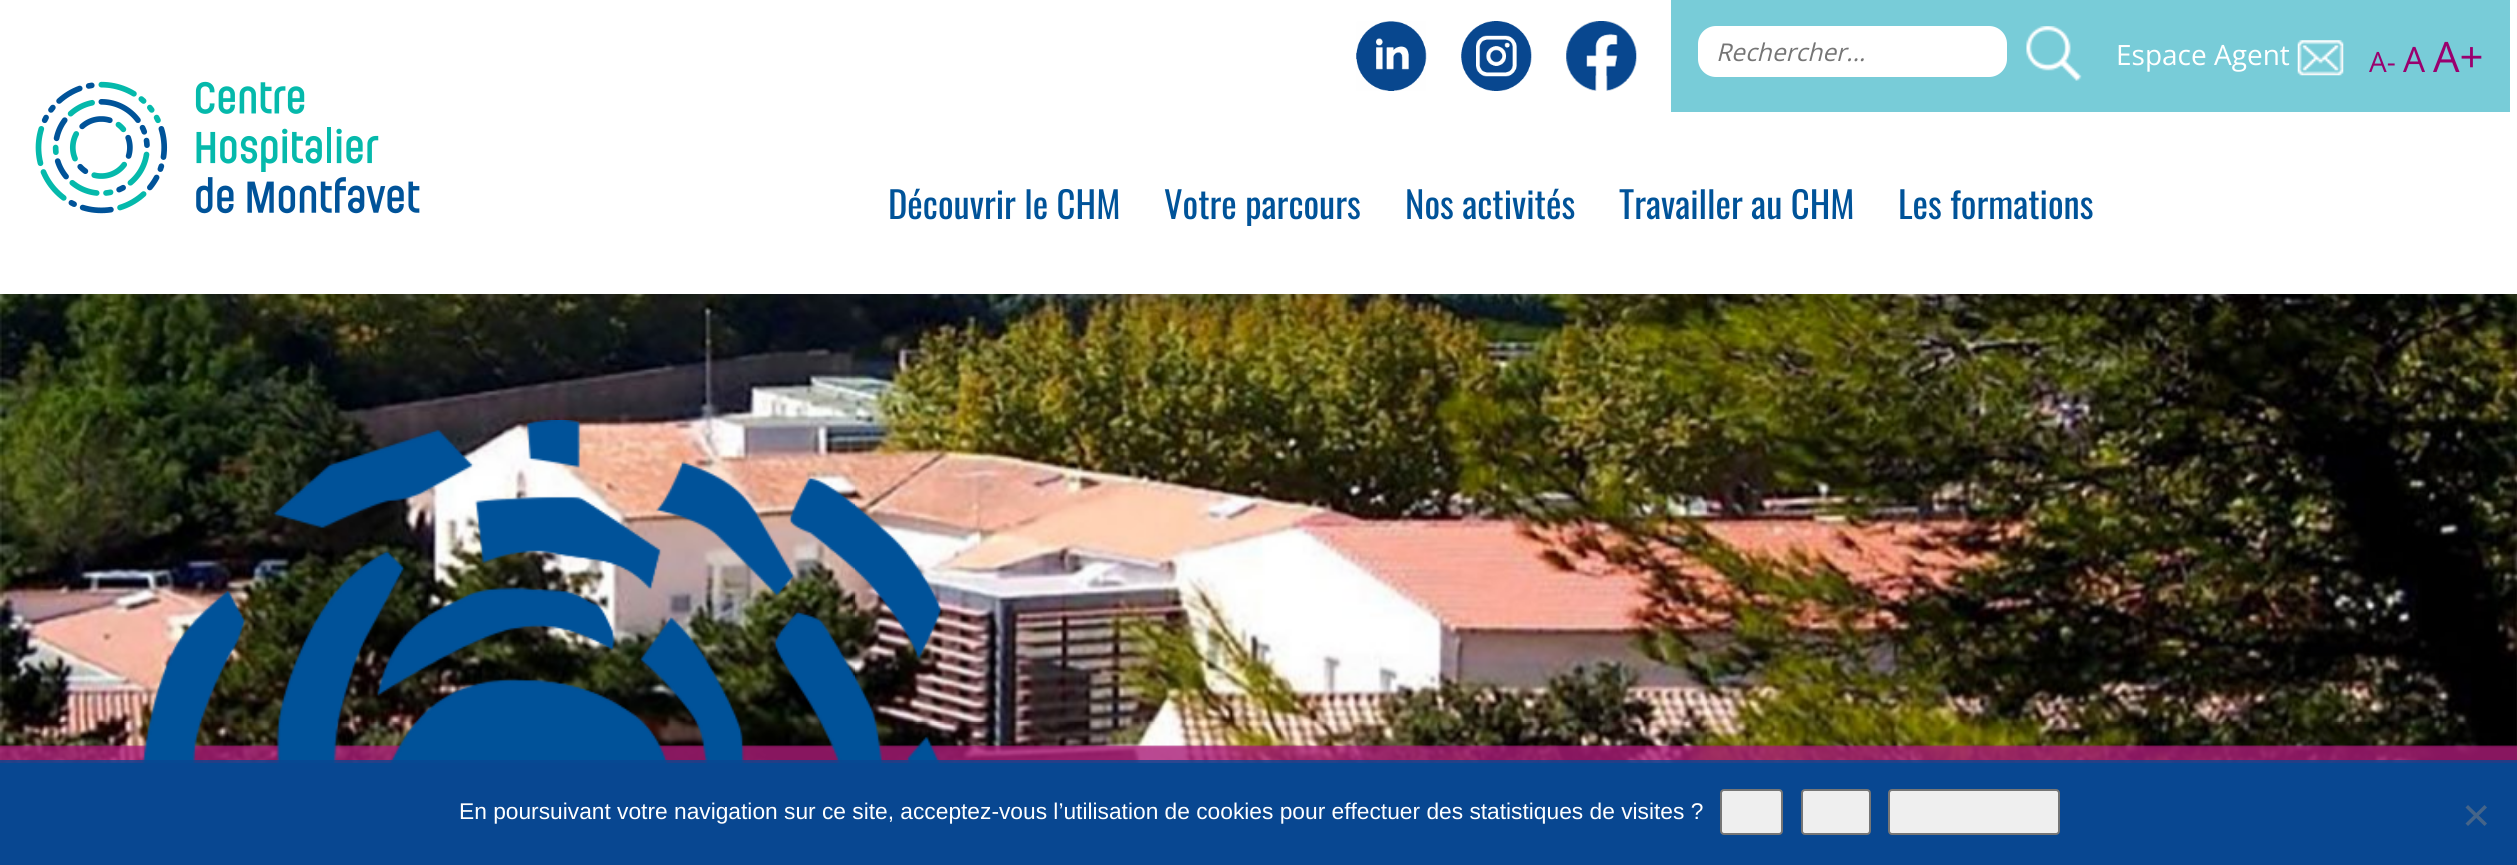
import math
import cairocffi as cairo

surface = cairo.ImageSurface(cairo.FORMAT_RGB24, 2517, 865)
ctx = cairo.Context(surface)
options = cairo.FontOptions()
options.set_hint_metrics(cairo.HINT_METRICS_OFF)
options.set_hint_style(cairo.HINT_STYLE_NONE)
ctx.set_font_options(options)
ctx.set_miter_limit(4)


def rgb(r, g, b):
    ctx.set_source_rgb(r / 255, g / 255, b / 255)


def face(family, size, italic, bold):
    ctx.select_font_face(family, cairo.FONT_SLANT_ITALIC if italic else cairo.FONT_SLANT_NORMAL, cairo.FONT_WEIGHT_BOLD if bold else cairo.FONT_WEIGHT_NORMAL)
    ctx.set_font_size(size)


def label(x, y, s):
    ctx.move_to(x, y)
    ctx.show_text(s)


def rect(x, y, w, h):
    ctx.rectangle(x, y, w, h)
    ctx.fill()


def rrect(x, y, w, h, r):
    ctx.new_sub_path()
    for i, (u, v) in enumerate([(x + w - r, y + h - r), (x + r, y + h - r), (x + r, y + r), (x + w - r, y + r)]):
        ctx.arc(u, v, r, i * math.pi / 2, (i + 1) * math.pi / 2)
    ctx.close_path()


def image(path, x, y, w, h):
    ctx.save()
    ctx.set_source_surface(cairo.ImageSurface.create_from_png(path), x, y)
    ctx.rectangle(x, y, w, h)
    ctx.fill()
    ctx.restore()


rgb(255, 255, 255)
ctx.paint()
image('image0.png', 35, 81, 385, 133)
image('image1.png', 1356, 21, 71, 70)
image('image2.png', 1461, 21, 71, 70)
image('image3.png', 1566, 21, 71, 70)
rgb(120, 204, 216)
rect(1671, 0, 839, 112)
rgb(255, 255, 255)
rrect(1698, 26, 309, 51, 18)
ctx.fill()
face('Open Sans', 24.5, 1, 0)
rgb(117, 117, 117)
label(1716, 61, 'Rechercher...')
image('image4.png', 2026, 26, 56, 55)
face('Open Sans', 28, 0, 0)
rgb(255, 255, 255)
label(2116, 65, 'Espace Agent')
image('image5.png', 2297, 40, 47, 36)
rgb(154, 0, 110)
label(2369, 72, 'A-')
face('Open Sans', 35, 0, 0)
label(2403, 72, 'A')
face('Open Sans', 42, 0, 0)
label(2433, 72, 'A+')
face('Oswald', 36.75, 0, 0)
rgb(0, 83, 153)
label(888, 219, 'Découvrir le CHM')
label(1164, 219, 'Votre parcours')
label(1405, 219, 'Nos activités')
label(1619, 219, 'Travailler au CHM')
label(1898, 219, 'Les formations')
image('image6.png', 0, 294, 2517, 469)
image('image7.png', 0, 420, 2517, 343)
ctx.set_source_rgba(0.035, 0.282, 0.565, 0.8)
rect(0, 760, 2517, 3)
rgb(8, 71, 145)
rect(0, 763, 2517, 102)
face('Liberation Sans', 22.75, 0, 0)
rgb(255, 255, 255)
label(459, 819, 'En poursuivant votre navigation sur ce site, acceptez-vous l’utilisation de cookies pour effectuer des statistiques de visites ?')
rgb(239, 239, 239)
rrect(1721, 790, 61, 44, 3)
ctx.fill_preserve()
rgb(118, 118, 118)
ctx.stroke()
rgb(239, 239, 239)
rrect(1802, 790, 68, 44, 3)
ctx.fill_preserve()
rgb(118, 118, 118)
ctx.stroke()
rgb(239, 239, 239)
rrect(1889, 790, 170, 44, 3)
ctx.fill_preserve()
rgb(118, 118, 118)
ctx.stroke()
rgb(68, 100, 137)
ctx.new_path()
ctx.move_to(2484.5, 805)
ctx.line_to(2487, 807.5)
ctx.line_to(2468, 826)
ctx.line_to(2465.5, 823.5)
ctx.close_path()
ctx.fill()
ctx.new_path()
ctx.move_to(2465.5, 807.5)
ctx.line_to(2468, 805)
ctx.line_to(2487, 823.5)
ctx.line_to(2484.5, 826)
ctx.close_path()
ctx.fill()
surface.write_to_png('render.png')
